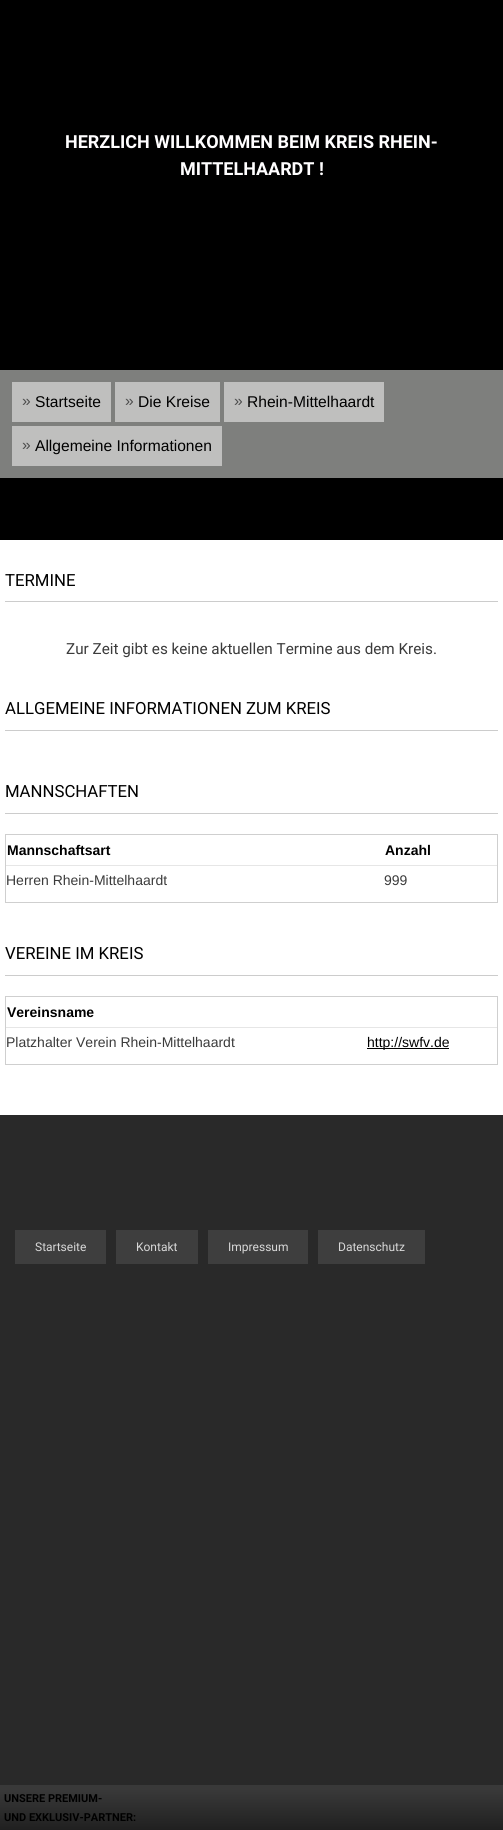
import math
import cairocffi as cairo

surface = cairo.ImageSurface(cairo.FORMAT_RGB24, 503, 1830)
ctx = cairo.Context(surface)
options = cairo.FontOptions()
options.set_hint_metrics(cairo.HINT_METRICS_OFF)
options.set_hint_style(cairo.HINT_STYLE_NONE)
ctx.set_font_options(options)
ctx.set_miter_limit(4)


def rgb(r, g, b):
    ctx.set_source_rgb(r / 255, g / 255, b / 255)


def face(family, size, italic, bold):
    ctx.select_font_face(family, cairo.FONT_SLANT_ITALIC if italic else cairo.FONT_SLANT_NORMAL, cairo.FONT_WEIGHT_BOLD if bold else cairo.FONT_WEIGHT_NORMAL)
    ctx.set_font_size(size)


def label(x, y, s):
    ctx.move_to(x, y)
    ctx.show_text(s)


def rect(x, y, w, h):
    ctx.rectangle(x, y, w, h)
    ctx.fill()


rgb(41, 41, 41)
ctx.paint()
rgb(0, 0, 0)
rect(0, 0, 503, 370)
face('Roboto', 18, 0, 1)
rgb(255, 254, 255)
label(65, 148, 'HERZLICH WILLKOMMEN BEIM KREIS RHEIN-')
label(180, 175, 'MITTELHAARDT !')
rgb(126, 127, 125)
rect(0, 370, 503, 108)
rgb(191, 191, 190)
rect(12, 382, 99, 40)
face('Liberation Sans', 15.6, 0, 0)
rgb(76, 76, 76)
label(22, 406, '»')
rgb(0, 0, 0)
label(35, 407, 'Startseite')
rgb(191, 191, 190)
rect(115, 382, 105, 40)
rgb(76, 76, 76)
label(125, 406, '»')
rgb(0, 0, 0)
label(138, 407, 'Die Kreise')
rgb(191, 191, 190)
rect(224, 382, 160, 40)
rgb(76, 76, 76)
label(234, 406, '»')
rgb(0, 0, 0)
label(247, 407, 'Rhein-Mittelhaardt')
rgb(191, 191, 190)
rect(12, 426, 210, 40)
rgb(76, 76, 76)
label(22, 450, '»')
rgb(0, 0, 0)
label(35, 451, 'Allgemeine Informationen')
rect(0, 478, 503, 62)
rgb(255, 255, 255)
rect(0, 540, 503, 575)
rgb(204, 204, 204)
rect(5, 601, 493, 1)
face('Roboto', 16.75, 0, 0)
rgb(0, 0, 0)
label(5, 586, 'TERMINE')
face('Roboto', 15.25, 0, 0)
rgb(59, 59, 59)
label(66, 654, 'Zur Zeit gibt es keine aktuellen Termine aus dem Kreis.')
rgb(204, 204, 204)
rect(5, 730, 493, 1)
face('Roboto', 16.75, 0, 0)
rgb(0, 0, 0)
label(5, 714, 'ALLGEMEINE INFORMATIONEN ZUM KREIS')
rgb(204, 204, 204)
rect(5, 813, 493, 1)
rgb(0, 0, 0)
label(5, 797, 'MANNSCHAFTEN')
ctx.rectangle(5.5, 834.5, 492, 68)
rgb(207, 207, 207)
ctx.set_line_width(1)
ctx.stroke()
face('Liberation Sans', 14, 0, 1)
rgb(0, 0, 0)
label(7, 855, 'Mannschaftsart')
label(385, 855, 'Anzahl')
rgb(230, 230, 230)
rect(6, 865, 491, 1)
face('Liberation Sans', 14, 0, 0)
rgb(59, 59, 59)
label(6, 885, 'Herren Rhein-Mittelhaardt')
label(384, 885, '999')
rgb(204, 204, 204)
rect(5, 975, 493, 1)
face('Roboto', 16.75, 0, 0)
rgb(0, 0, 0)
label(5, 959, 'VEREINE IM KREIS')
ctx.rectangle(5.5, 996.5, 492, 68)
rgb(207, 207, 207)
ctx.stroke()
face('Liberation Sans', 14, 0, 1)
rgb(0, 0, 0)
label(7, 1017, 'Vereinsname')
rgb(230, 230, 230)
rect(6, 1027, 491, 1)
face('Liberation Sans', 14, 0, 0)
rgb(59, 59, 59)
label(6, 1047, 'Platzhalter Verein Rhein-Mittelhaardt')
rgb(0, 0, 0)
rect(367, 1048, 82, 1)
label(367, 1047, 'http://swfv.de')
rgb(62, 62, 62)
rect(15, 1230, 91, 34)
face('Roboto', 12, 0, 0)
rgb(216, 216, 216)
label(35, 1251, 'Startseite')
rgb(62, 62, 62)
rect(116, 1230, 82, 34)
rgb(216, 216, 216)
label(136, 1251, 'Kontakt')
rgb(62, 62, 62)
rect(208, 1230, 100, 34)
rgb(216, 216, 216)
label(228, 1251, 'Impressum')
rgb(62, 62, 62)
rect(318, 1230, 107, 34)
rgb(216, 216, 216)
label(338, 1251, 'Datenschutz')
gradient = cairo.LinearGradient(252, 1785, 252, 1830)
gradient.add_color_stop_rgba(0.1, 0.224, 0.224, 0.224, 1)
gradient.add_color_stop_rgba(1, 0.125, 0.125, 0.125, 1)
ctx.set_source(gradient)
rect(0, 1785, 503, 45)
face('Roboto', 11, 0, 1)
rgb(0, 0, 0)
label(4, 1802, 'UNSERE PREMIUM-')
label(4, 1821, 'UND EXKLUSIV-PARTNER:')
surface.write_to_png('render.png')
